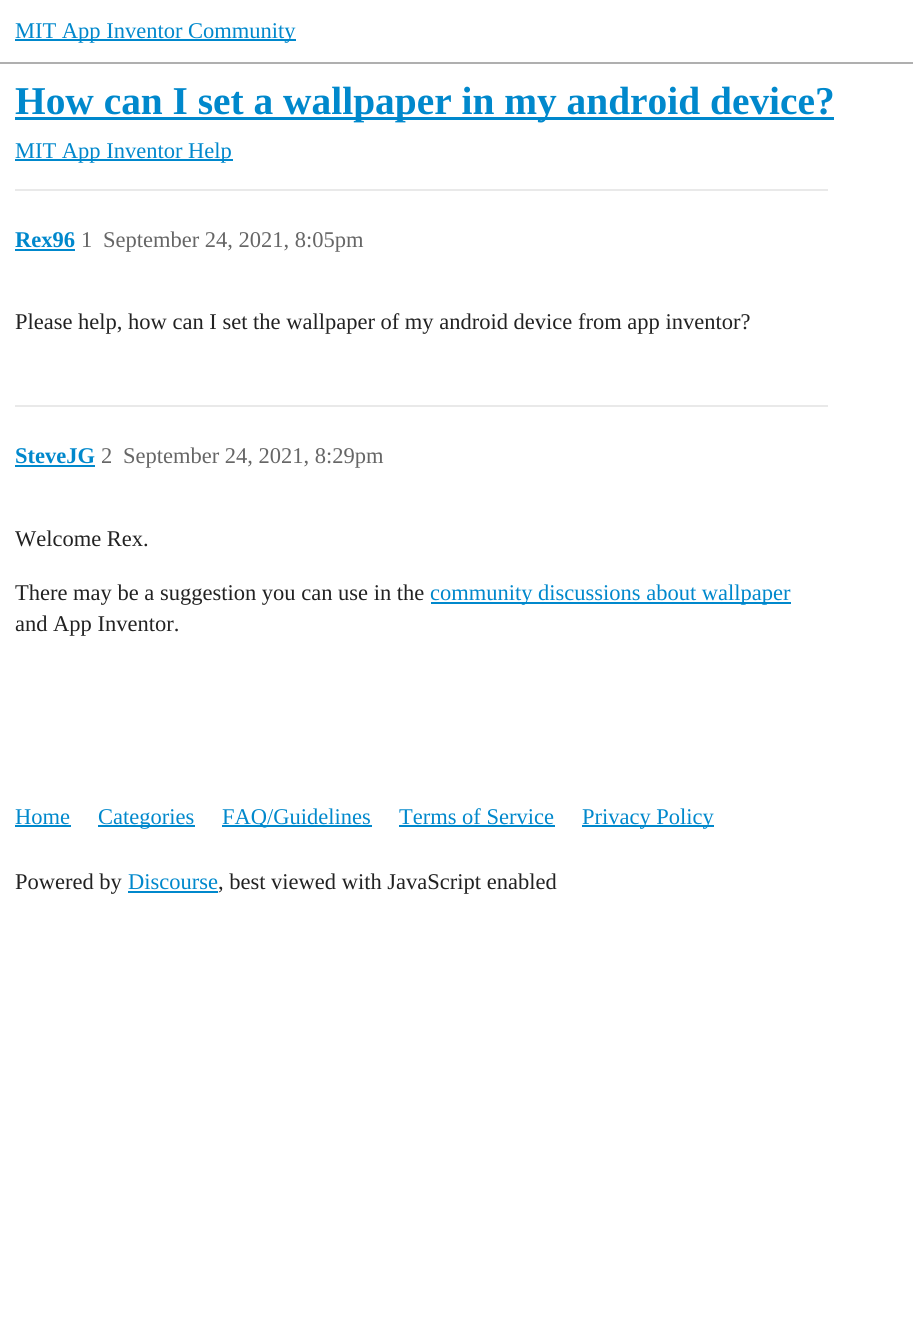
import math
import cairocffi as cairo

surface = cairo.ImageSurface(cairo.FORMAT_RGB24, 913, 1318)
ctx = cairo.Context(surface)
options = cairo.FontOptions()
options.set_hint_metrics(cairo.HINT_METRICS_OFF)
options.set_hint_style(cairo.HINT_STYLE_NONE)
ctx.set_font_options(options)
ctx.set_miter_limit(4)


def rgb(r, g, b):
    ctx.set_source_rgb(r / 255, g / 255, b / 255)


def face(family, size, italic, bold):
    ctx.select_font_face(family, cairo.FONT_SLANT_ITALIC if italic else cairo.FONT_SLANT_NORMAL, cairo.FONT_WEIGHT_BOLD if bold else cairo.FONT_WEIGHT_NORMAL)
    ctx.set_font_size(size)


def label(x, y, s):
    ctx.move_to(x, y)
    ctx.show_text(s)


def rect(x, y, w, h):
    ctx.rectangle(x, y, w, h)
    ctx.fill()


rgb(255, 255, 255)
ctx.paint()
rgb(175, 175, 175)
rect(0, 62, 913, 2)
rgb(0, 136, 204)
rect(15, 39, 281, 2)
face('Liberation Serif', 22.5, 0, 0)
label(15, 38, 'MIT App Inventor Community')
rect(15, 117, 819, 3)
face('Liberation Serif', 39.4, 0, 1)
label(15, 114, 'How can I set a wallpaper in my android device?')
rect(15, 159, 218, 2)
face('Liberation Serif', 22.5, 0, 0)
label(15, 158, 'MIT App Inventor Help')
rgb(233, 233, 233)
rect(15, 189, 813, 2)
face('Liberation Serif', 22.5, 0, 1)
rgb(0, 136, 204)
label(15, 247, 'Rex96')
rect(15, 249, 60, 2)
face('Liberation Serif', 22.5, 0, 0)
rgb(102, 102, 102)
label(81, 247, '1')
label(103, 247, 'September 24, 2021, 8:05pm')
rgb(34, 34, 34)
label(15, 329, 'Please help, how can I set the wallpaper of my android device from app inventor?')
rgb(233, 233, 233)
rect(15, 405, 813, 2)
face('Liberation Serif', 22.5, 0, 1)
rgb(0, 136, 204)
label(15, 463, 'SteveJG')
rect(15, 465, 80, 2)
face('Liberation Serif', 22.5, 0, 0)
rgb(102, 102, 102)
label(101, 463, '2')
label(123, 463, 'September 24, 2021, 8:29pm')
rgb(34, 34, 34)
label(15, 546, 'Welcome Rex.')
label(15, 600, 'There may be a suggestion you can use in the')
rgb(0, 136, 204)
rect(431, 602, 360, 2)
label(430, 600, 'community discussions about wallpaper')
rgb(34, 34, 34)
label(15, 631, 'and App Inventor.')
rgb(0, 136, 204)
label(15, 824, 'Home')
rect(15, 825, 56, 2)
rect(98, 825, 97, 2)
label(98, 824, 'Categories')
rect(222, 825, 150, 2)
label(222, 824, 'FAQ/Guidelines')
label(399, 824, 'Terms of Service')
rect(399, 825, 156, 2)
rect(582, 825, 132, 2)
label(582, 824, 'Privacy Policy')
rgb(34, 34, 34)
label(15, 889, 'Powered by')
rgb(0, 136, 204)
label(128, 889, 'Discourse')
rect(128, 891, 90, 2)
rgb(34, 34, 34)
label(218, 889, ', best viewed with JavaScript enabled')
surface.write_to_png('render.png')
